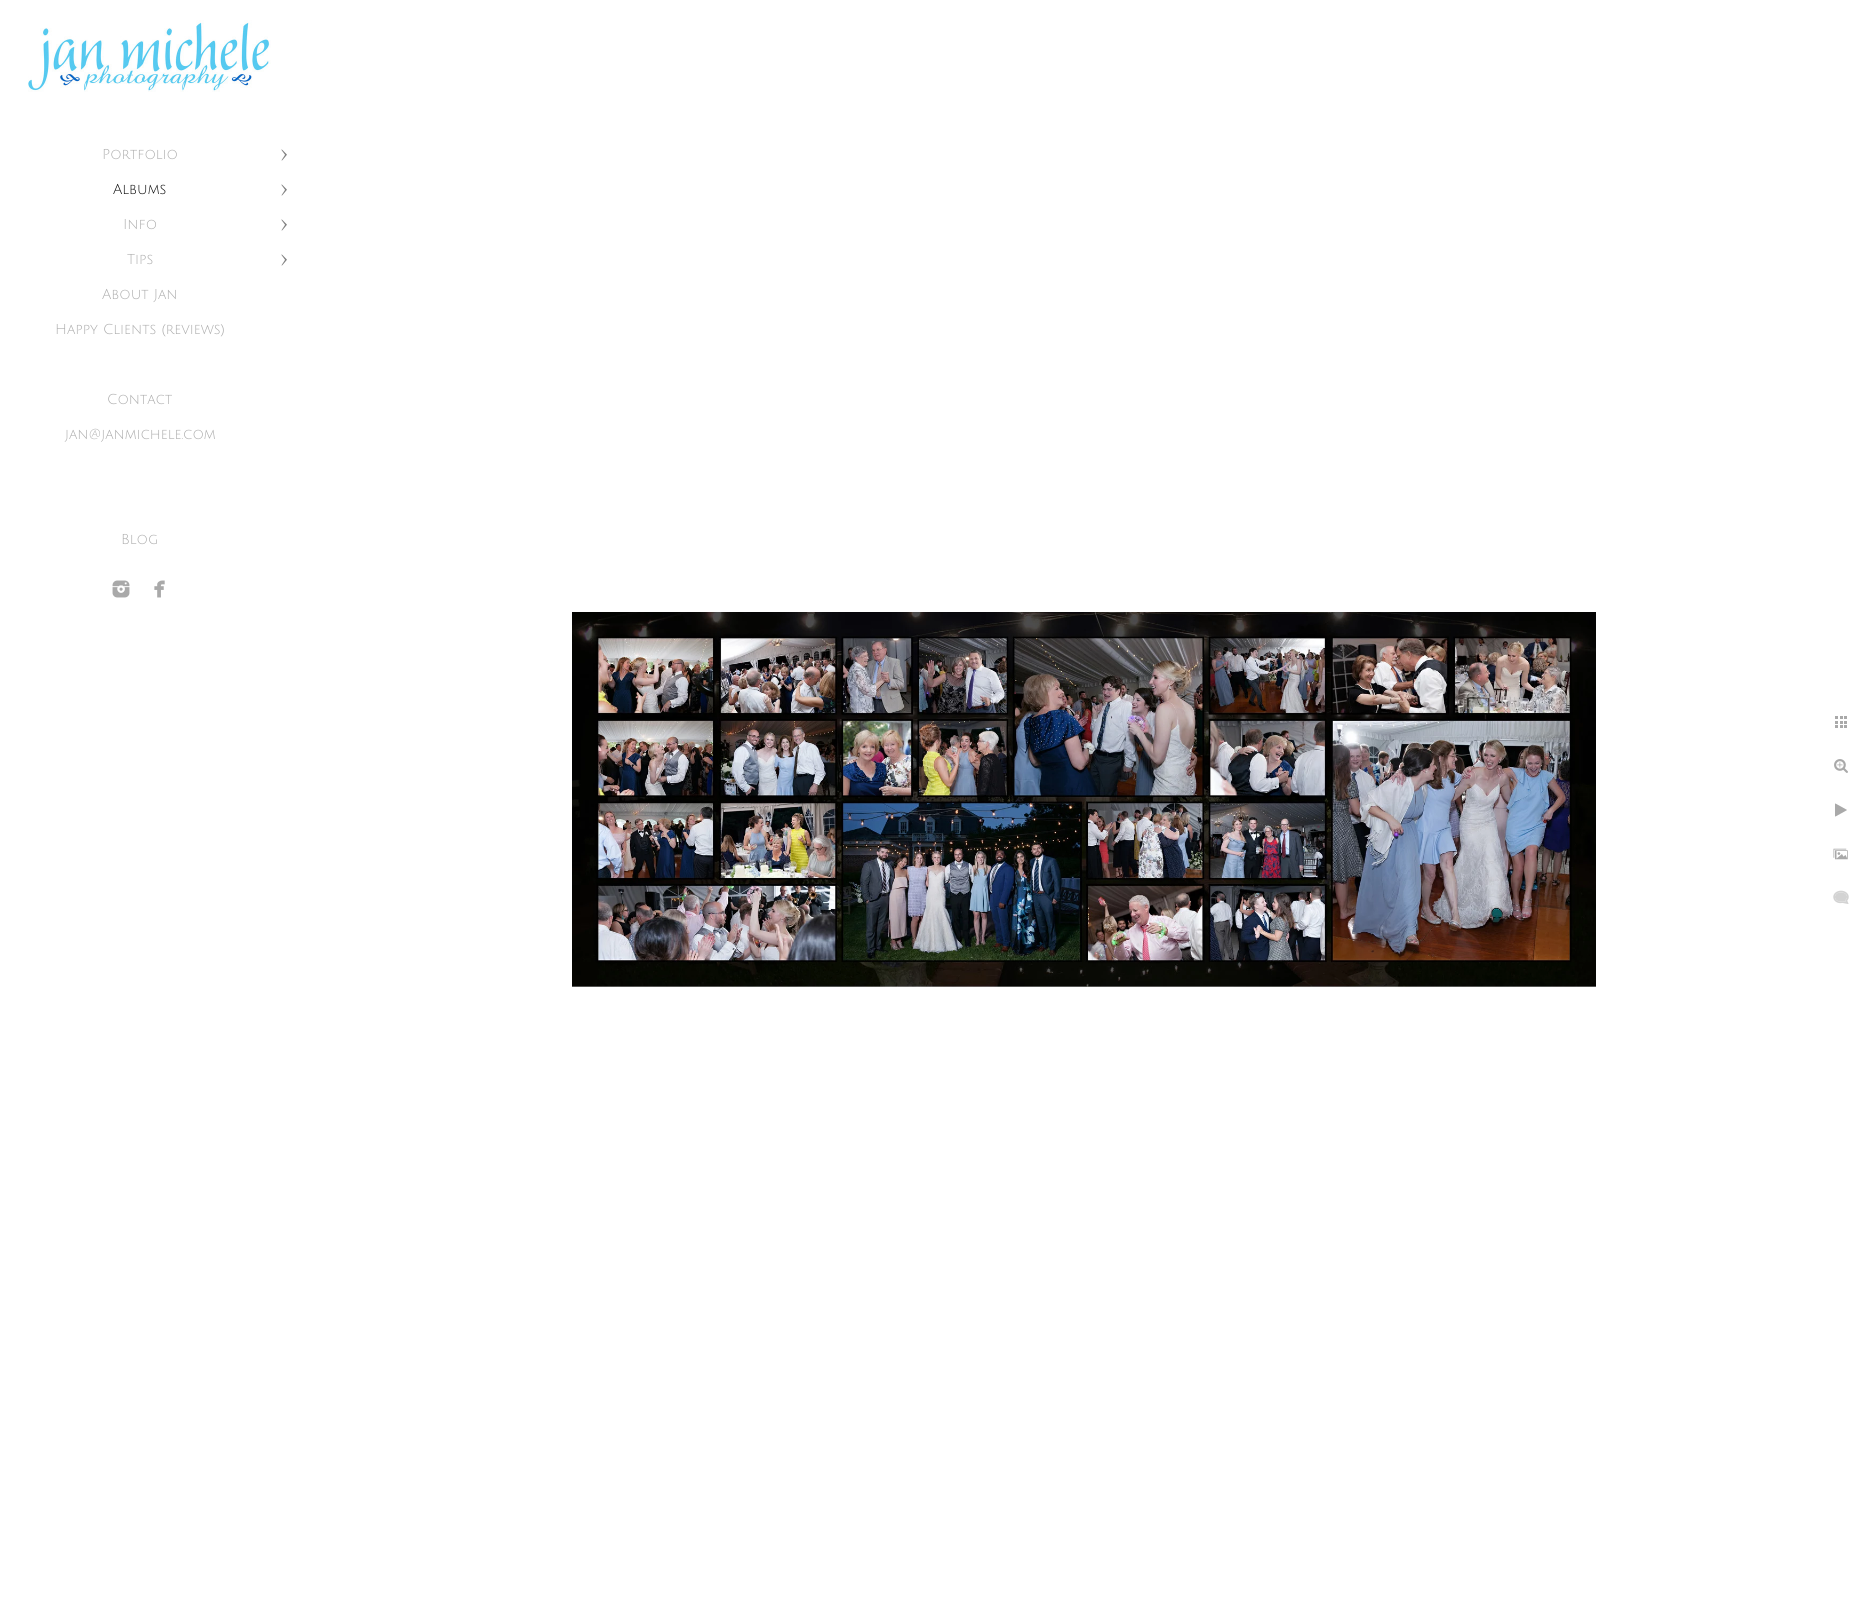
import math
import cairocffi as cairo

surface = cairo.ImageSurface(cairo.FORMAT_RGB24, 1868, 1599)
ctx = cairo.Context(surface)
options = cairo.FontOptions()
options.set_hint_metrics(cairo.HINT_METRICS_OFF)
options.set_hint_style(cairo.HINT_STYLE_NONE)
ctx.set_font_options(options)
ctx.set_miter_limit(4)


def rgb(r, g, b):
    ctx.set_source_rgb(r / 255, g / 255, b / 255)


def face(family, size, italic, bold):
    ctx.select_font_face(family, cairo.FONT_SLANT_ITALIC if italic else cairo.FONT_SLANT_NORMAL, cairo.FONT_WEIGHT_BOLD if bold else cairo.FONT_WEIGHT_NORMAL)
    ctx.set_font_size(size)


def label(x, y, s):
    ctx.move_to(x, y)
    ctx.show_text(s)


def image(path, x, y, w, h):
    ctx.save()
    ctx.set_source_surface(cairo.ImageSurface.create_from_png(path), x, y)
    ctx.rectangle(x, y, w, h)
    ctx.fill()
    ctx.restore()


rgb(255, 255, 255)
ctx.paint()
image('image0.png', 28, 20, 243, 72)
face('Julius Sans One', 14, 0, 0)
rgb(169, 169, 169)
label(102, 159, 'Portfolio')
image('image1.png', 281, 149, 6, 12)
rgb(0, 0, 0)
label(113, 194, 'Albums')
image('image1.png', 281, 184, 6, 12)
rgb(169, 169, 169)
label(123, 229, 'Info')
image('image1.png', 281, 219, 6, 12)
label(127, 264, 'Tips')
image('image1.png', 281, 254, 6, 12)
label(102, 299, 'About Jan')
label(55, 334, 'Happy Clients (reviews)')
label(107, 404, 'Contact')
label(65, 439, 'jan@janmichele.com')
label(121, 544, 'Blog')
image('image2.png', 112, 580, 18, 18)
image('image3.png', 154, 580, 11, 18)
image('image4.png', 572, 612, 1024, 375)
image('image5.png', 1835, 716, 12, 12)
image('image6.png', 1834, 759, 14, 14)
image('image7.png', 1835, 803, 12, 14)
image('image8.png', 1833, 848, 15, 12)
image('image9.png', 1833, 890, 16, 14)
surface.write_to_png('render.png')
